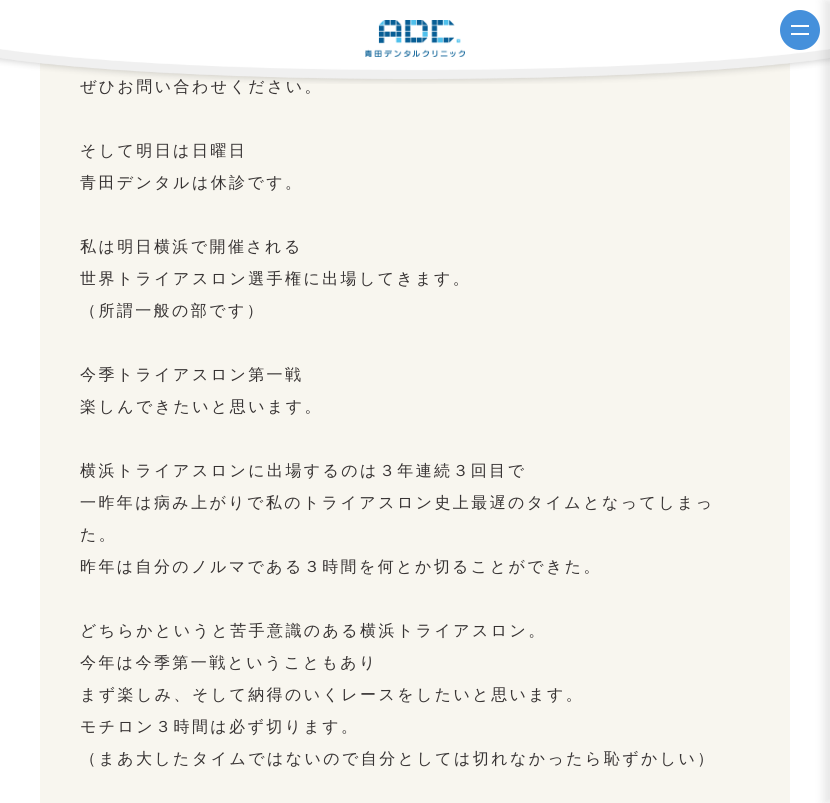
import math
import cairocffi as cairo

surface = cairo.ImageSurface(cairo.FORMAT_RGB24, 830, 803)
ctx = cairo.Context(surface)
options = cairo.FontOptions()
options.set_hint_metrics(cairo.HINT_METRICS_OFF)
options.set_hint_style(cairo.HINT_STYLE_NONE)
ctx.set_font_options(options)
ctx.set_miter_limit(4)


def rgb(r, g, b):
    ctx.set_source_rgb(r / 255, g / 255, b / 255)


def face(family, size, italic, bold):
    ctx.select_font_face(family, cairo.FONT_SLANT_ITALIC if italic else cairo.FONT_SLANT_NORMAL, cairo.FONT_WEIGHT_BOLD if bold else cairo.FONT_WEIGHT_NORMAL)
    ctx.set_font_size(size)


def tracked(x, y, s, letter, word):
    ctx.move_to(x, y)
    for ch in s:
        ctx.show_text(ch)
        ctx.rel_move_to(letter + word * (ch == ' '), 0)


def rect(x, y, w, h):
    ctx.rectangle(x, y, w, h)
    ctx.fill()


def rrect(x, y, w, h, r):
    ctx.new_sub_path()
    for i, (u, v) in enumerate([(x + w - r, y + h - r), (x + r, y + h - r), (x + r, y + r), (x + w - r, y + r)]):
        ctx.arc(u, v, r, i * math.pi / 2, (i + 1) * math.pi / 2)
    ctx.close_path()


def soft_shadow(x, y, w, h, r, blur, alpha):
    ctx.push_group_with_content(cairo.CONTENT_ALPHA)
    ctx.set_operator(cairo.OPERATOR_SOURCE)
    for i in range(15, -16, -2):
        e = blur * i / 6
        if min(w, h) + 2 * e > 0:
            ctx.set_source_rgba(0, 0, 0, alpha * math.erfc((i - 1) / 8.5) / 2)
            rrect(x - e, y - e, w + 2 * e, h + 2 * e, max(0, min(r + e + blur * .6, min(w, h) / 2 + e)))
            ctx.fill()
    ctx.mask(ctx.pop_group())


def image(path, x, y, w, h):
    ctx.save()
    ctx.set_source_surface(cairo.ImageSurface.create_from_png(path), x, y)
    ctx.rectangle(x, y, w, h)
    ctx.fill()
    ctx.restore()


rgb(255, 255, 255)
ctx.paint()
rgb(248, 246, 239)
rect(40, 63, 750, 740)
face('WenQuanYi Zen Hei Medium', 16, 0, 0)
rgb(55, 51, 51)
tracked(80, 92, 'ぜひお問い合わせください。', 2.4, 0)
image('image1.png', 0, 49, 830, 35)
rgb(0, 0, 0)
soft_shadow(824, 0, 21, 803, 0, 5, 0.1)
image('image0.png', 365, 20, 100, 37)
rgb(69, 144, 219)
ctx.arc(800, 30, 20, 0, 2 * math.pi)
ctx.fill()
rgb(255, 255, 255)
rect(791, 25, 18, 2)
rect(791, 33, 18, 2)
rgb(55, 51, 51)
tracked(80, 156, 'そして明日は日曜日', 2.4, 0)
tracked(80, 188, '青田デンタルは休診です。', 2.4, 0)
tracked(80, 252, '私は明日横浜で開催される', 2.4, 0)
tracked(80, 284, '世界トライアスロン選手権に出場してきます。', 2.4, 0)
tracked(80, 316, '（所謂一般の部です）', 2.4, 0)
tracked(80, 380, '今季トライアスロン第一戦', 2.4, 0)
tracked(80, 412, '楽しんできたいと思います。', 2.4, 0)
tracked(80, 476, '横浜トライアスロンに出場するのは３年連続３回目で', 2.4, 0)
tracked(80, 508, '一昨年は病み上がりで私のトライアスロン史上最遅のタイムとなってしまっ', 2.4, 0)
tracked(80, 540, 'た。', 2.4, 0)
tracked(80, 572, '昨年は自分のノルマである３時間を何とか切ることができた。', 2.4, 0)
tracked(80, 636, 'どちらかというと苦手意識のある横浜トライアスロン。', 2.4, 0)
tracked(80, 668, '今年は今季第一戦ということもあり', 2.4, 0)
tracked(80, 700, 'まず楽しみ、そして納得のいくレースをしたいと思います。', 2.4, 0)
tracked(80, 732, 'モチロン３時間は必ず切ります。', 2.4, 0)
tracked(80, 764, '（まあ大したタイムではないので自分としては切れなかったら恥ずかしい）', 2.4, 0)
surface.write_to_png('render.png')
